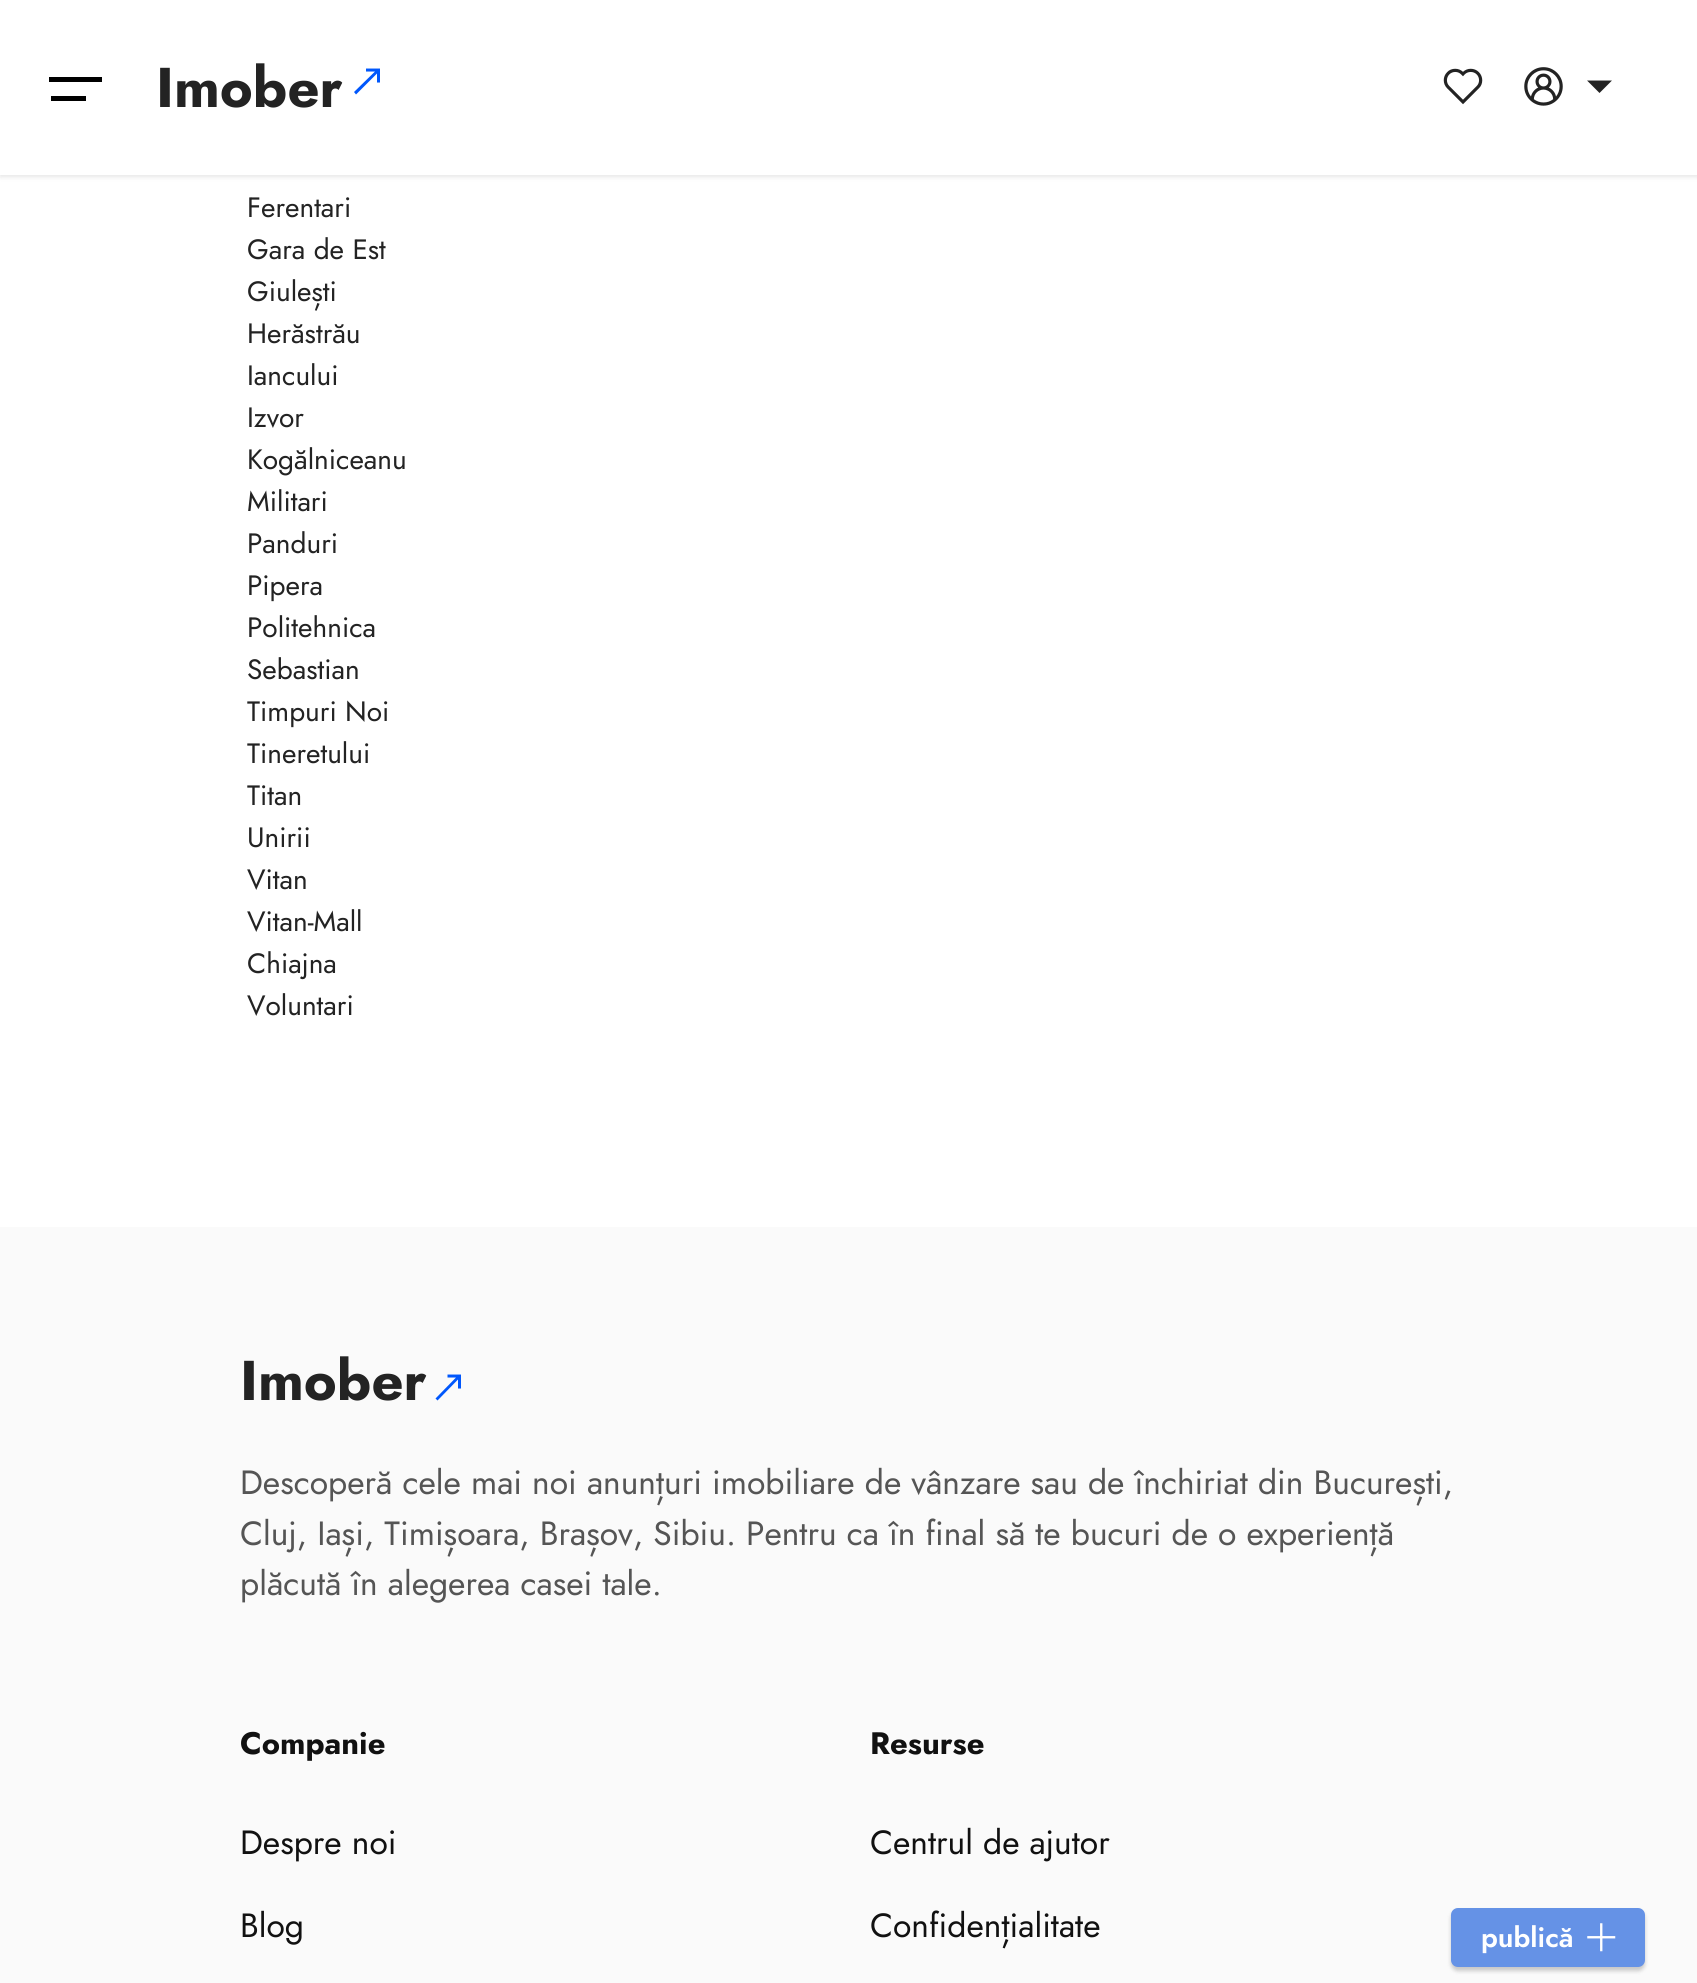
import math
import cairocffi as cairo

surface = cairo.ImageSurface(cairo.FORMAT_RGB24, 1697, 1983)
ctx = cairo.Context(surface)
options = cairo.FontOptions()
options.set_hint_metrics(cairo.HINT_METRICS_OFF)
options.set_hint_style(cairo.HINT_STYLE_NONE)
ctx.set_font_options(options)
ctx.set_miter_limit(4)


def rgb(r, g, b):
    ctx.set_source_rgb(r / 255, g / 255, b / 255)


def face(family, size, italic, bold):
    ctx.select_font_face(family, cairo.FONT_SLANT_ITALIC if italic else cairo.FONT_SLANT_NORMAL, cairo.FONT_WEIGHT_BOLD if bold else cairo.FONT_WEIGHT_NORMAL)
    ctx.set_font_size(size)


def label(x, y, s):
    ctx.move_to(x, y)
    ctx.show_text(s)


def rect(x, y, w, h):
    ctx.rectangle(x, y, w, h)
    ctx.fill()


def rrect(x, y, w, h, r):
    ctx.new_sub_path()
    for i, (u, v) in enumerate([(x + w - r, y + h - r), (x + r, y + h - r), (x + r, y + r), (x + w - r, y + r)]):
        ctx.arc(u, v, r, i * math.pi / 2, (i + 1) * math.pi / 2)
    ctx.close_path()


def soft_shadow(x, y, w, h, r, blur, alpha):
    ctx.push_group_with_content(cairo.CONTENT_ALPHA)
    ctx.set_operator(cairo.OPERATOR_SOURCE)
    for i in range(15, -16, -2):
        e = blur * i / 6
        if min(w, h) + 2 * e > 0:
            ctx.set_source_rgba(0, 0, 0, alpha * math.erfc((i - 1) / 8.5) / 2)
            rrect(x - e, y - e, w + 2 * e, h + 2 * e, max(0, min(r + e + blur * .6, min(w, h) / 2 + e)))
            ctx.fill()
    ctx.mask(ctx.pop_group())


def image(path, x, y, w, h):
    ctx.save()
    ctx.set_source_surface(cairo.ImageSurface.create_from_png(path), x, y)
    ctx.rectangle(x, y, w, h)
    ctx.fill()
    ctx.restore()


rgb(255, 255, 255)
ctx.paint()
rgb(0, 0, 0)
soft_shadow(0, 2, 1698, 175, 0, 2.5, 0.1)
rgb(255, 255, 255)
rect(0, 0, 1697, 175)
rgb(0, 0, 0)
rect(49, 77, 53, 5)
rect(51, 96, 35, 5)
face('Jost', 56, 0, 1)
rgb(35, 35, 35)
label(156, 107, 'Imober')
rgb(0, 87, 252)
ctx.new_path()
ctx.move_to(366, 68.5)
ctx.line_to(380, 68.5)
ctx.line_to(380, 82.5)
ctx.line_to(377, 82.5)
ctx.line_to(377, 73.5)
ctx.line_to(356, 94.5)
ctx.line_to(354, 92)
ctx.line_to(375, 71.5)
ctx.line_to(366, 71.5)
ctx.close_path()
ctx.fill()
image('image0.png', 1443, 68, 40, 37)
image('image1.png', 1524, 67, 39, 39)
rgb(35, 35, 35)
ctx.new_path()
ctx.move_to(1587, 80.5)
ctx.line_to(1612, 80.5)
ctx.line_to(1599.5, 93)
ctx.close_path()
ctx.fill()
face('Jost', 28, 0, 0)
label(247, 217, 'Ferentari')
label(247, 259, 'Gara de Est')
label(247, 301, 'Giulești')
label(247, 343, 'Herăstrău')
label(247, 385, 'Iancului')
label(247, 427, 'Izvor')
label(247, 469, 'Kogălniceanu')
label(247, 511, 'Militari')
label(247, 553, 'Panduri')
label(247, 595, 'Pipera')
label(247, 637, 'Politehnica')
label(247, 679, 'Sebastian')
label(247, 721, 'Timpuri Noi')
label(247, 763, 'Tineretului')
label(247, 805, 'Titan')
label(247, 847, 'Unirii')
label(247, 889, 'Vitan')
label(247, 931, 'Vitan-Mall')
label(247, 973, 'Chiajna')
label(247, 1015, 'Voluntari')
rgb(250, 250, 250)
rect(0, 1227, 1697, 756)
face('Jost', 56, 0, 1)
rgb(35, 35, 35)
label(240, 1400, 'Imober')
rgb(0, 87, 252)
ctx.new_path()
ctx.move_to(447.5, 1374.5)
ctx.line_to(461, 1374.5)
ctx.line_to(461, 1388.5)
ctx.line_to(458, 1388.5)
ctx.line_to(458, 1379.5)
ctx.line_to(437.5, 1400.5)
ctx.line_to(435.5, 1398.5)
ctx.line_to(456, 1377.5)
ctx.line_to(447.5, 1377.5)
ctx.close_path()
ctx.fill()
face('Jost', 33.6, 0, 0)
rgb(85, 85, 85)
label(240, 1494, 'Descoperă cele mai noi anunțuri imobiliare de vânzare sau de închiriat din București,')
label(240, 1545, 'Cluj, Iași, Timișoara, Brașov, Sibiu.')
label(746, 1545, 'Pentru ca în final să te bucuri de o experiență')
label(240, 1595, 'plăcută în alegerea casei tale.')
face('Jost', 31, 0, 1)
rgb(17, 17, 17)
label(240, 1754, 'Companie')
face('Jost', 33.6, 0, 0)
label(240, 1854, 'Despre noi')
label(240, 1937, 'Blog')
face('Jost', 31, 0, 1)
label(870, 1754, 'Resurse')
face('Jost', 33.6, 0, 0)
label(870, 1854, 'Centrul de ajutor')
label(870, 1937, 'Confidențialitate')
rgb(0, 0, 0)
soft_shadow(1451, 1911, 194, 60, 7, 2, 0.2)
rgb(101, 146, 230)
rrect(1452, 1909, 192, 57, 6)
ctx.fill_preserve()
ctx.stroke()
face('Jost SemiBold', 28, 0, 0)
rgb(255, 255, 255)
label(1481, 1947, 'publică')
image('image2.png', 1587, 1923, 29, 29)
surface.write_to_png('render.png')
